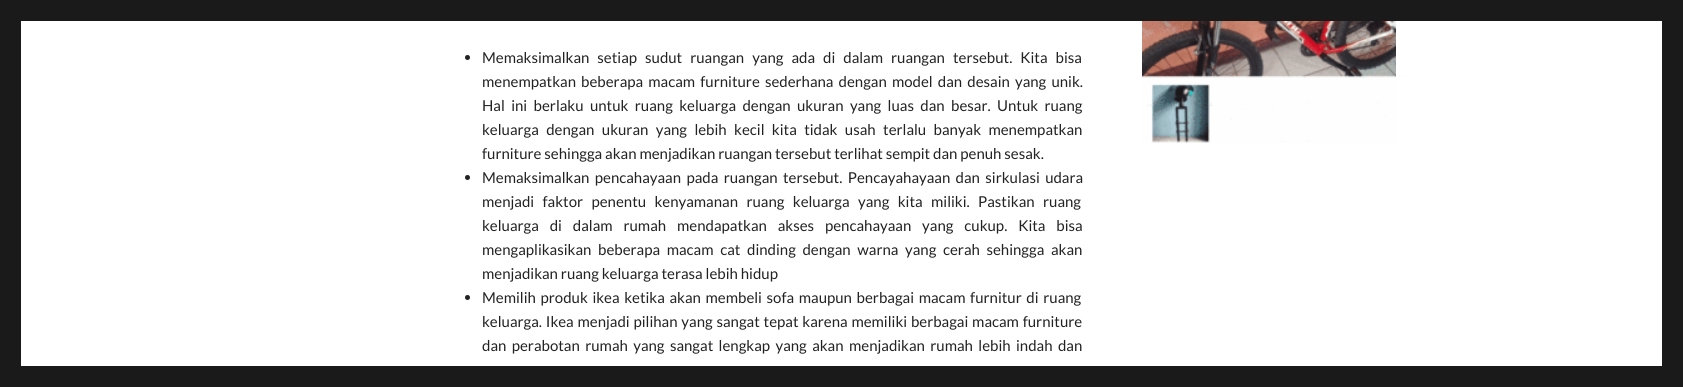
import math
import cairocffi as cairo

surface = cairo.ImageSurface(cairo.FORMAT_RGB24, 1683, 387)
ctx = cairo.Context(surface)
options = cairo.FontOptions()
options.set_hint_metrics(cairo.HINT_METRICS_OFF)
options.set_hint_style(cairo.HINT_STYLE_NONE)
ctx.set_font_options(options)
ctx.set_miter_limit(4)


def rgb(r, g, b):
    ctx.set_source_rgb(r / 255, g / 255, b / 255)


def face(family, size, italic, bold):
    ctx.select_font_face(family, cairo.FONT_SLANT_ITALIC if italic else cairo.FONT_SLANT_NORMAL, cairo.FONT_WEIGHT_BOLD if bold else cairo.FONT_WEIGHT_NORMAL)
    ctx.set_font_size(size)


def label(x, y, s):
    ctx.move_to(x, y)
    ctx.show_text(s)


def tracked(x, y, s, letter, word):
    ctx.move_to(x, y)
    for ch in s:
        ctx.show_text(ch)
        ctx.rel_move_to(letter + word * (ch == ' '), 0)


def rect(x, y, w, h):
    ctx.rectangle(x, y, w, h)
    ctx.fill()


def image(path, x, y, w, h):
    ctx.save()
    ctx.set_source_surface(cairo.ImageSurface.create_from_png(path), x, y)
    ctx.rectangle(x, y, w, h)
    ctx.fill()
    ctx.restore()


rgb(26, 26, 26)
ctx.paint()
rgb(255, 255, 255)
rect(21, 21, 1641, 345)
rgb(34, 34, 34)
ctx.arc(467.5, 57.5, 2.5, 0, 2 * math.pi)
ctx.fill()
face('Lato', 15, 0, 0)
tracked(482, 63, 'Memaksimalkan setiap sudut ruangan yang ada di dalam ruangan tersebut. Kita bisa', 0, 5.1)
tracked(482, 87, 'menempatkan beberapa macam furniture sederhana dengan model dan desain yang unik.', 0, 2.25)
tracked(482, 111, 'Hal ini berlaku untuk ruang keluarga dengan ukuran yang luas dan besar. Untuk ruang', 0, 3.5)
tracked(482, 135, 'keluarga dengan ukuran yang lebih kecil kita tidak usah terlalu banyak menempatkan', 0, 4.5)
label(482, 159, 'furniture sehingga akan menjadikan ruangan tersebut terlihat sempit dan penuh sesak.')
ctx.new_path()
ctx.arc(467.5, 177.5, 2.5, 0, 2 * math.pi)
ctx.fill()
tracked(482, 183, 'Memaksimalkan pencahayaan pada ruangan tersebut. Pencayahayaan dan sirkulasi udara', 0, 2.5)
tracked(482, 207, 'menjadi faktor penentu kenyamanan ruang keluarga yang kita miliki. Pastikan ruang', 0, 5.5)
tracked(482, 231, 'keluarga di dalam rumah mendapatkan akses pencahayaan yang cukup. Kita bisa', 0, 8)
tracked(482, 255, 'mengaplikasikan beberapa macam cat dinding dengan warna yang cerah sehingga akan', 0, 3.75)
label(482, 279, 'menjadikan ruang keluarga terasa lebih hidup')
ctx.new_path()
ctx.arc(467.5, 297.5, 2.5, 0, 2 * math.pi)
ctx.fill()
tracked(482, 303, 'Memilih produk ikea ketika akan membeli sofa maupun berbagai macam furnitur di ruang', 0, 1.75)
tracked(482, 327, 'keluarga. Ikea menjadi pilihan yang sangat tepat karena memiliki berbagai macam furniture', 0, 0.9)
tracked(482, 351, 'dan perabotan rumah yang sangat lengkap yang akan menjadikan rumah lebih indah dan', 0, 2.5)
image('image0.png', 1142, 21, 254, 122)
surface.write_to_png('render.png')
